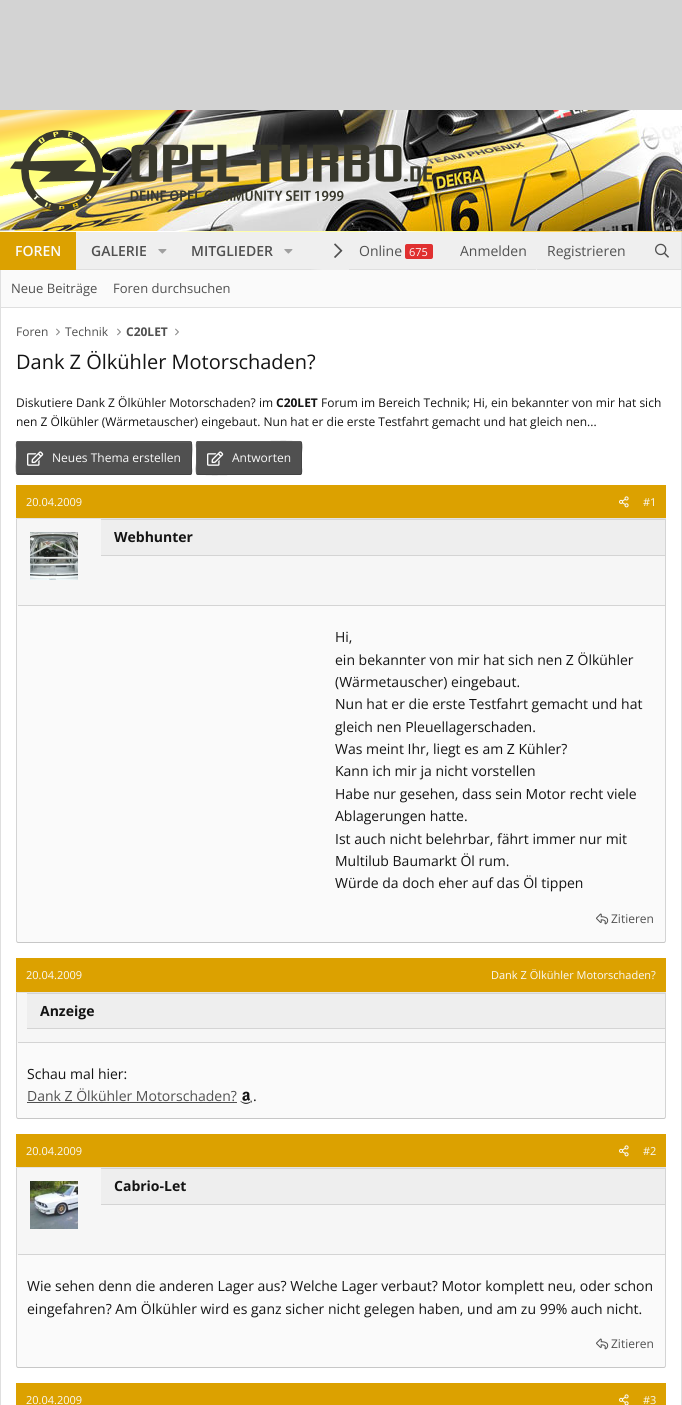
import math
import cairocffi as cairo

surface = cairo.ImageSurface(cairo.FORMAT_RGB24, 682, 1405)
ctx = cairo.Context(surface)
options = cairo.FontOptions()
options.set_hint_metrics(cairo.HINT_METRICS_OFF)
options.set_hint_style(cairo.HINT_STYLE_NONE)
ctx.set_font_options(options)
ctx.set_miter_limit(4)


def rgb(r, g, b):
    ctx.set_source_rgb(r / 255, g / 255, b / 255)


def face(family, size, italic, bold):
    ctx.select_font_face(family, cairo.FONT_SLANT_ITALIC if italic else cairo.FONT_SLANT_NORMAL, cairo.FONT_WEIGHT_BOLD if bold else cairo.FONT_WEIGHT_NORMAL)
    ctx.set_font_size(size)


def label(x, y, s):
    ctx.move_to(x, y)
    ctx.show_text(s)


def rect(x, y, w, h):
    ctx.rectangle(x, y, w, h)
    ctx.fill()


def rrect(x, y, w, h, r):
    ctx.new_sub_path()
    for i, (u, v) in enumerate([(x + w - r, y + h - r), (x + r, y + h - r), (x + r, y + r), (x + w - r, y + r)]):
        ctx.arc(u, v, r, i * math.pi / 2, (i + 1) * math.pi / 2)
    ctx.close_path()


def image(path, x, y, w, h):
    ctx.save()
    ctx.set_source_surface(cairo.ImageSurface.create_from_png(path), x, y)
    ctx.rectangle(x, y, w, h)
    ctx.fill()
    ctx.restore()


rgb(211, 211, 211)
ctx.paint()
gradient = cairo.LinearGradient(362, 288, 320, 54)
gradient.add_color_stop_rgba(0, 1, 0.827, 0.337, 1)
gradient.add_color_stop_rgba(0.01, 1, 0.827, 0.345, 1)
gradient.add_color_stop_rgba(0.02, 1, 0.843, 0.369, 1)
gradient.add_color_stop_rgba(0.03, 1, 0.878, 0.525, 1)
gradient.add_color_stop_rgba(0.04, 0.992, 0.914, 0.667, 1)
gradient.add_color_stop_rgba(0.04, 1, 0.961, 0.863, 1)
gradient.add_color_stop_rgba(0.05, 1, 0.953, 0.816, 1)
gradient.add_color_stop_rgba(0.05, 1, 0.922, 0.706, 1)
gradient.add_color_stop_rgba(0.06, 1, 0.855, 0.435, 1)
gradient.add_color_stop_rgba(0.06, 1, 0.824, 0.314, 1)
gradient.add_color_stop_rgba(0.07, 1, 0.827, 0.337, 1)
gradient.add_color_stop_rgba(0.09, 0.996, 0.835, 0.333, 1)
gradient.add_color_stop_rgba(0.11, 1, 0.867, 0.345, 1)
gradient.add_color_stop_rgba(0.13, 1, 0.91, 0.369, 1)
gradient.add_color_stop_rgba(0.14, 1, 0.996, 0.4, 1)
gradient.add_color_stop_rgba(0.17, 1, 1, 0.482, 1)
gradient.add_color_stop_rgba(0.18, 1, 1, 0.529, 1)
gradient.add_color_stop_rgba(0.18, 1, 1, 0.584, 1)
gradient.add_color_stop_rgba(0.19, 0.996, 1, 0.741, 1)
gradient.add_color_stop_rgba(0.21, 1, 1, 1, 1)
gradient.add_color_stop_rgba(0.22, 0.996, 1, 1, 1)
gradient.add_color_stop_rgba(0.23, 1, 0.996, 0.976, 1)
gradient.add_color_stop_rgba(0.23, 0.996, 1, 0.694, 1)
gradient.add_color_stop_rgba(0.24, 1, 1, 0.608, 1)
gradient.add_color_stop_rgba(0.24, 0.996, 1, 0.635, 1)
gradient.add_color_stop_rgba(0.3, 1, 1, 0.647, 1)
gradient.add_color_stop_rgba(0.34, 0.996, 1, 0.694, 1)
gradient.add_color_stop_rgba(0.35, 1, 1, 0.745, 1)
gradient.add_color_stop_rgba(0.36, 1, 1, 0.78, 1)
gradient.add_color_stop_rgba(0.37, 0.996, 0.996, 0.949, 1)
gradient.add_color_stop_rgba(0.37, 1, 1, 1, 1)
gradient.add_color_stop_rgba(0.44, 1, 1, 0.992, 1)
gradient.add_color_stop_rgba(0.44, 1, 1, 0.953, 1)
gradient.add_color_stop_rgba(0.45, 1, 1, 0.878, 1)
gradient.add_color_stop_rgba(0.45, 0.996, 1, 0.922, 1)
gradient.add_color_stop_rgba(0.47, 1, 1, 1, 1)
gradient.add_color_stop_rgba(0.49, 1, 1, 1, 1)
gradient.add_color_stop_rgba(0.5, 1, 0.996, 0.859, 1)
gradient.add_color_stop_rgba(0.51, 0.996, 1, 0.584, 1)
gradient.add_color_stop_rgba(0.51, 1, 1, 0.565, 1)
gradient.add_color_stop_rgba(0.53, 1, 0.996, 0.569, 1)
gradient.add_color_stop_rgba(0.53, 1, 0.996, 0.553, 1)
gradient.add_color_stop_rgba(0.57, 1, 1, 0.576, 1)
gradient.add_color_stop_rgba(0.59, 0.996, 1, 0.6, 1)
gradient.add_color_stop_rgba(0.59, 1, 1, 0.624, 1)
gradient.add_color_stop_rgba(0.6, 1, 0.996, 0.671, 1)
gradient.add_color_stop_rgba(0.61, 1, 1, 0.804, 1)
gradient.add_color_stop_rgba(0.62, 0.996, 1, 0.961, 1)
gradient.add_color_stop_rgba(0.63, 1, 1, 0.992, 1)
gradient.add_color_stop_rgba(0.64, 1, 1, 1, 1)
gradient.add_color_stop_rgba(0.65, 1, 1, 0.847, 1)
gradient.add_color_stop_rgba(0.65, 1, 1, 0.553, 1)
gradient.add_color_stop_rgba(0.66, 1, 1, 0.514, 1)
gradient.add_color_stop_rgba(0.72, 1, 1, 0.482, 1)
gradient.add_color_stop_rgba(0.74, 1, 1, 0.482, 1)
gradient.add_color_stop_rgba(0.76, 1, 1, 0.506, 1)
gradient.add_color_stop_rgba(0.77, 1, 0.996, 0.635, 1)
gradient.add_color_stop_rgba(0.78, 0.996, 0.996, 0.706, 1)
gradient.add_color_stop_rgba(0.79, 1, 1, 0.757, 1)
gradient.add_color_stop_rgba(0.79, 0.996, 1, 0.859, 1)
gradient.add_color_stop_rgba(0.8, 0.996, 0.996, 0.988, 1)
gradient.add_color_stop_rgba(0.8, 1, 1, 0.992, 1)
gradient.add_color_stop_rgba(0.81, 1, 0.996, 0.914, 1)
gradient.add_color_stop_rgba(0.81, 1, 0.996, 0.675, 1)
gradient.add_color_stop_rgba(0.82, 0.996, 1, 0.467, 1)
gradient.add_color_stop_rgba(0.82, 0.996, 1, 0.443, 1)
gradient.add_color_stop_rgba(0.85, 1, 1, 0.42, 1)
gradient.add_color_stop_rgba(0.86, 0.988, 0.992, 0.392, 1)
gradient.add_color_stop_rgba(0.88, 0.996, 0.906, 0.365, 1)
gradient.add_color_stop_rgba(0.9, 0.992, 0.855, 0.345, 1)
gradient.add_color_stop_rgba(0.91, 0.992, 0.839, 0.333, 1)
gradient.add_color_stop_rgba(0.92, 0.996, 0.835, 0.373, 1)
gradient.add_color_stop_rgba(0.93, 0.996, 0.847, 0.412, 1)
gradient.add_color_stop_rgba(0.94, 0.996, 0.859, 0.49, 1)
gradient.add_color_stop_rgba(0.95, 0.984, 0.89, 0.608, 1)
gradient.add_color_stop_rgba(0.96, 0.992, 0.922, 0.725, 1)
gradient.add_color_stop_rgba(0.96, 0.992, 0.925, 0.753, 1)
gradient.add_color_stop_rgba(0.97, 0.988, 0.906, 0.651, 1)
gradient.add_color_stop_rgba(0.98, 0.984, 0.824, 0.337, 1)
gradient.add_color_stop_rgba(1, 0.988, 0.816, 0.333, 1)
ctx.set_source(gradient)
rect(0, 110, 682, 122)
image('image0.png', 0, 110, 682, 121)
image('image1.png', 10, 130, 422, 82)
rgb(239, 239, 239)
rect(76, 232, 605, 37)
rgb(223, 223, 223)
rect(76, 269, 567, 1)
rgb(220, 161, 0)
rect(0, 232, 76, 38)
face('Open Sans SemiBold', 14, 0, 0)
rgb(250, 250, 250)
label(15, 256, 'FOREN')
rgb(80, 80, 80)
label(91, 256, 'GALERIE')
image('image2.png', 158, 249, 9, 5)
label(191, 256, 'MITGLIEDER')
image('image2.png', 284, 249, 9, 5)
gradient = cairo.LinearGradient(309, 251, 349, 251)
gradient.add_color_stop_rgba(0, 0.937, 0.937, 0.937, 0)
gradient.add_color_stop_rgba(0.33, 0.937, 0.937, 0.937, 1)
ctx.set_source(gradient)
rect(311, 269, 38, 1)
image('image3.png', 334, 243, 9, 15)
rgb(239, 239, 239)
ctx.new_path()
ctx.move_to(351, 232)
ctx.line_to(441, 232)
ctx.curve_to(442, 232, 443, 233, 443, 234)
ctx.line_to(443, 270)
ctx.line_to(349, 270)
ctx.line_to(349, 234)
ctx.curve_to(349, 233, 350, 232, 351, 232)
ctx.close_path()
ctx.fill()
rgb(223, 223, 223)
rect(349, 269, 94, 1)
face('Open Sans', 14, 0, 0)
rgb(80, 80, 80)
label(359, 256, 'Online')
rgb(224, 48, 48)
rrect(405, 244, 28, 15, 2)
ctx.fill()
face('Open Sans', 11, 0, 0)
rgb(250, 250, 250)
label(409, 256, '675')
rgb(239, 239, 239)
ctx.new_path()
ctx.move_to(452, 232)
ctx.line_to(634, 232)
ctx.curve_to(635, 232, 636, 233, 636, 234)
ctx.line_to(636, 270)
ctx.line_to(450, 270)
ctx.line_to(450, 234)
ctx.curve_to(450, 233, 451, 232, 452, 232)
ctx.close_path()
ctx.fill()
rgb(223, 223, 223)
rect(450, 269, 186, 1)
face('Open Sans', 14, 0, 0)
rgb(80, 80, 80)
label(460, 256, 'Anmelden')
rgb(239, 239, 239)
rect(536, 269, 1, 1)
rgb(80, 80, 80)
label(547, 256, 'Registrieren')
rgb(239, 239, 239)
ctx.new_path()
ctx.move_to(645, 232)
ctx.line_to(679, 232)
ctx.curve_to(680, 232, 681, 233, 681, 234)
ctx.line_to(681, 270)
ctx.line_to(643, 270)
ctx.line_to(643, 234)
ctx.curve_to(643, 233, 644, 232, 645, 232)
ctx.close_path()
ctx.fill()
rgb(223, 223, 223)
rect(643, 269, 38, 1)
image('image4.png', 655, 243, 14, 15)
rgb(250, 250, 250)
rect(1, 270, 680, 37)
rgb(223, 223, 223)
rect(681, 232, 1, 1173)
rect(0, 307, 682, 1)
rect(0, 270, 1, 1135)
face('Open Sans', 13, 0, 0)
rgb(80, 80, 80)
label(11, 293, 'Neue Beiträge')
label(113, 293, 'Foren durchsuchen')
rgb(255, 255, 255)
rect(1, 308, 680, 1097)
face('Open Sans', 12, 0, 0)
rgb(80, 80, 80)
label(16, 336, 'Foren')
image('image5.png', 56, 328, 4, 8)
label(65, 336, 'Technik')
image('image5.png', 117, 328, 4, 8)
face('Open Sans', 12, 0, 1)
label(126, 336, 'C20LET')
image('image5.png', 175, 328, 4, 8)
face('Open Sans', 20, 0, 0)
rgb(20, 20, 20)
label(16, 369, 'Dank Z Ölkühler Motorschaden?')
face('Open Sans', 12, 0, 0)
label(16, 407, 'Diskutiere Dank Z Ölkühler Motorschaden? im')
face('Open Sans', 12, 0, 1)
label(276, 407, 'C20LET')
face('Open Sans', 12, 0, 0)
label(321, 407, 'Forum im Bereich Technik; Hi, ein bekannter von mir hat sich')
label(16, 426, 'nen Z Ölkühler (Wärmetauscher) eingebaut. Nun hat er die erste Testfahrt gemacht und hat gleich nen...')
rgb(80, 80, 80)
rrect(16, 441, 176, 34, 2)
ctx.fill()
ctx.new_path()
ctx.move_to(191, 442)
ctx.curve_to(192.5, 443.5, 191.5, 455.5, 191.5, 458)
ctx.line_to(191.5, 468)
ctx.curve_to(191.5, 468, 192.5, 474.5, 190, 474.5)
ctx.line_to(17, 474)
rgb(67, 67, 67)
ctx.set_line_width(1)
ctx.stroke()
ctx.new_path()
ctx.move_to(17, 474)
ctx.curve_to(15.5, 472.5, 16.5, 460.5, 16.5, 458)
ctx.line_to(16.5, 448)
ctx.curve_to(16.5, 448, 15.5, 441.5, 18, 441.5)
ctx.line_to(191, 442)
rgb(93, 93, 93)
ctx.stroke()
image('image6.png', 27, 451, 17, 15)
rgb(250, 250, 250)
label(52, 462, 'Neues Thema erstellen')
rgb(80, 80, 80)
rrect(196, 441, 106, 34, 2)
ctx.fill()
ctx.new_path()
ctx.move_to(301, 442)
ctx.curve_to(302.5, 443.5, 301.5, 451, 301.5, 453)
ctx.line_to(301.5, 468)
ctx.curve_to(301.5, 468, 302.5, 474.5, 300, 474.5)
ctx.line_to(232, 474.5)
ctx.curve_to(230, 474.5, 198, 475, 197, 474)
rgb(67, 67, 67)
ctx.stroke()
ctx.new_path()
ctx.move_to(197, 474)
ctx.curve_to(195.5, 472.5, 196.5, 465, 196.5, 463)
ctx.line_to(196.5, 448)
ctx.curve_to(196.5, 448, 195.5, 441.5, 198, 441.5)
ctx.line_to(266, 441.5)
ctx.curve_to(268, 441.5, 300, 441, 301, 442)
rgb(93, 93, 93)
ctx.stroke()
image('image6.png', 207, 451, 17, 15)
rgb(250, 250, 250)
label(232, 462, 'Antworten')
rrect(16, 485, 650, 458, 2)
ctx.fill()
ctx.new_path()
ctx.move_to(665, 486)
ctx.line_to(665.5, 487)
ctx.line_to(665.5, 941)
ctx.line_to(665, 942)
rgb(212, 212, 212)
ctx.stroke()
ctx.new_path()
ctx.move_to(665, 942)
ctx.line_to(664, 942.5)
ctx.line_to(18, 942.5)
ctx.line_to(17, 942)
rgb(199, 199, 199)
ctx.stroke()
ctx.new_path()
ctx.move_to(17, 942)
ctx.line_to(16.5, 941)
ctx.line_to(16.5, 487)
ctx.line_to(17, 486)
rgb(212, 212, 212)
ctx.stroke()
rgb(220, 161, 0)
rect(16, 485, 650, 33)
rgb(227, 227, 227)
rect(16, 518, 650, 1)
face('Open Sans', 11, 0, 0)
rgb(250, 250, 250)
label(26, 506, '20.04.2009')
image('image7.png', 619, 496, 10, 12)
label(643, 506, '#1')
rgb(246, 246, 246)
ctx.new_path()
ctx.move_to(18, 519)
ctx.line_to(664, 519)
ctx.curve_to(664.5, 519, 665, 519.5, 665, 520)
ctx.line_to(665, 606)
ctx.line_to(18, 606)
ctx.curve_to(17.5, 606, 17, 605.5, 17, 605)
ctx.line_to(17, 520)
ctx.curve_to(17, 519.5, 17.5, 519, 18, 519)
ctx.close_path()
ctx.fill()
rgb(212, 212, 212)
rect(18, 605, 647, 1)
image('image8.png', 30, 532, 48, 48)
rgb(238, 238, 238)
rect(101, 520, 564, 35)
rgb(212, 212, 212)
rect(101, 519, 564, 1)
rect(101, 555, 564, 1)
face('Open Sans', 14, 0, 1)
rgb(20, 20, 20)
label(114, 542, 'Webhunter')
face('Open Sans', 14, 0, 0)
label(335, 642, 'Hi,')
label(335, 665, 'ein bekannter von mir hat sich nen Z Ölkühler')
label(335, 687, '(Wärmetauscher) eingebaut.')
label(335, 709, 'Nun hat er die erste Testfahrt gemacht und hat')
label(335, 732, 'gleich nen Pleuellagerschaden.')
label(335, 754, 'Was meint Ihr, liegt es am Z Kühler?')
label(335, 776, 'Kann ich mir ja nicht vorstellen')
label(335, 799, 'Habe nur gesehen, dass sein Motor recht viele')
label(335, 821, 'Ablagerungen hatte.')
label(335, 844, 'Ist auch nicht belehrbar, fährt immer nur mit')
label(335, 866, 'Multilub Baumarkt Öl rum.')
label(335, 888, 'Würde da doch eher auf das Öl tippen')
image('image9.png', 596, 913, 13, 12)
face('Open Sans', 12, 0, 0)
rgb(80, 80, 80)
label(611, 923, 'Zitieren')
rgb(250, 250, 250)
rrect(16, 958, 650, 161, 2)
ctx.fill()
ctx.new_path()
ctx.move_to(665, 959)
ctx.line_to(665.5, 960)
ctx.line_to(665.5, 1117)
ctx.line_to(665, 1118)
rgb(212, 212, 212)
ctx.stroke()
ctx.new_path()
ctx.move_to(665, 1118)
ctx.line_to(664, 1118.5)
ctx.line_to(18, 1118.5)
ctx.line_to(17, 1118)
rgb(199, 199, 199)
ctx.stroke()
ctx.new_path()
ctx.move_to(17, 1118)
ctx.line_to(16.5, 1117)
ctx.line_to(16.5, 960)
ctx.line_to(17, 959)
rgb(212, 212, 212)
ctx.stroke()
rgb(220, 161, 0)
rect(16, 958, 650, 34)
rgb(227, 227, 227)
rect(16, 992, 650, 1)
face('Open Sans', 11, 0, 0)
rgb(250, 250, 250)
label(26, 979, '20.04.2009')
label(491, 979, 'Dank Z Ölkühler Motorschaden?')
rgb(246, 246, 246)
ctx.new_path()
ctx.move_to(18, 993)
ctx.line_to(664, 993)
ctx.curve_to(664.5, 993, 665, 993.5, 665, 994)
ctx.line_to(665, 1043)
ctx.line_to(18, 1043)
ctx.curve_to(17.5, 1043, 17, 1042.5, 17, 1042)
ctx.line_to(17, 994)
ctx.curve_to(17, 993.5, 17.5, 993, 18, 993)
ctx.close_path()
ctx.fill()
rgb(212, 212, 212)
rect(18, 1042, 647, 1)
rgb(238, 238, 238)
rect(27, 994, 638, 34)
rgb(212, 212, 212)
rect(27, 993, 638, 1)
rect(27, 1028, 638, 1)
face('Open Sans', 14, 0, 1)
rgb(20, 20, 20)
label(40, 1016, 'Anzeige')
face('Open Sans', 14, 0, 0)
label(27, 1079, 'Schau mal hier:')
rgb(80, 80, 80)
label(27, 1101, 'Dank Z Ölkühler Motorschaden?')
rect(27, 1102, 210, 1)
image('image10.png', 240, 1091, 12, 13)
rgb(20, 20, 20)
label(253, 1101, '.')
rgb(250, 250, 250)
rrect(16, 1134, 650, 234, 2)
ctx.fill()
ctx.new_path()
ctx.move_to(665, 1135)
ctx.line_to(665.5, 1136)
ctx.line_to(665.5, 1366)
ctx.line_to(665, 1367)
rgb(212, 212, 212)
ctx.stroke()
ctx.new_path()
ctx.move_to(665, 1367)
ctx.line_to(664, 1367.5)
ctx.line_to(18, 1367.5)
ctx.line_to(17, 1367)
rgb(199, 199, 199)
ctx.stroke()
ctx.new_path()
ctx.move_to(17, 1367)
ctx.line_to(16.5, 1366)
ctx.line_to(16.5, 1136)
ctx.line_to(17, 1135)
rgb(212, 212, 212)
ctx.stroke()
rgb(220, 161, 0)
rect(16, 1134, 650, 33)
rgb(227, 227, 227)
rect(16, 1167, 650, 1)
face('Open Sans', 11, 0, 0)
rgb(250, 250, 250)
label(26, 1155, '20.04.2009')
image('image7.png', 619, 1145, 10, 12)
label(643, 1155, '#2')
rgb(246, 246, 246)
ctx.new_path()
ctx.move_to(18, 1168)
ctx.line_to(664, 1168)
ctx.curve_to(664.5, 1168, 665, 1168.5, 665, 1169)
ctx.line_to(665, 1255)
ctx.line_to(18, 1255)
ctx.curve_to(17.5, 1255, 17, 1254.5, 17, 1254)
ctx.line_to(17, 1169)
ctx.curve_to(17, 1168.5, 17.5, 1168, 18, 1168)
ctx.close_path()
ctx.fill()
rgb(212, 212, 212)
rect(18, 1254, 647, 1)
image('image11.png', 30, 1181, 48, 48)
rgb(238, 238, 238)
rect(101, 1169, 564, 35)
rgb(212, 212, 212)
rect(101, 1168, 564, 1)
rect(101, 1204, 564, 1)
face('Open Sans', 14, 0, 1)
rgb(20, 20, 20)
label(114, 1191, 'Cabrio-Let')
face('Open Sans', 14, 0, 0)
label(27, 1291, 'Wie sehen denn die anderen Lager aus? Welche Lager verbaut? Motor komplett neu, oder schon')
label(27, 1314, 'eingefahren? Am Ölkühler wird es ganz sicher nicht gelegen haben, und am zu 99% auch nicht.')
image('image9.png', 596, 1338, 13, 12)
face('Open Sans', 12, 0, 0)
rgb(80, 80, 80)
label(611, 1348, 'Zitieren')
rgb(220, 161, 0)
rect(16, 1383, 650, 22)
face('Open Sans', 11, 0, 0)
rgb(250, 250, 250)
label(26, 1404, '20.04.2009')
image('image12.png', 619, 1394, 10, 11)
label(643, 1404, '#3')
surface.write_to_png('render.png')
